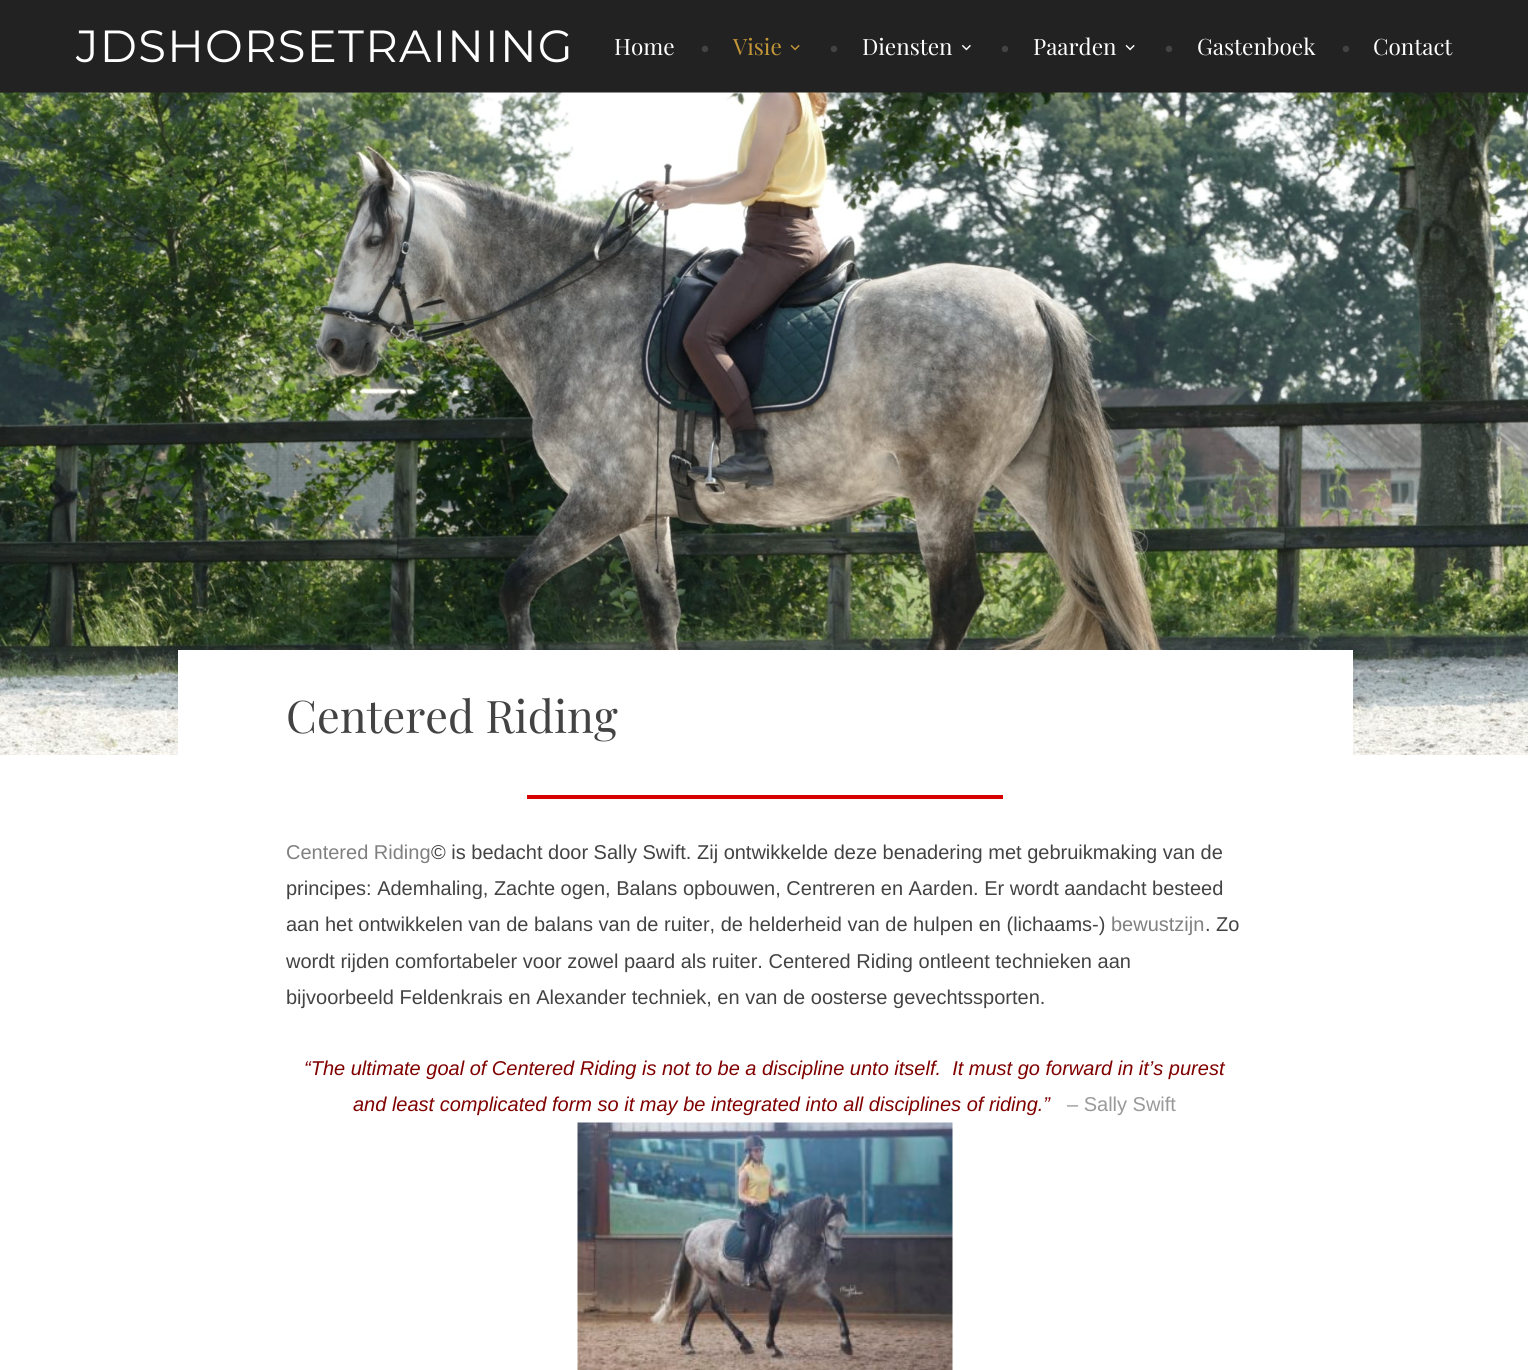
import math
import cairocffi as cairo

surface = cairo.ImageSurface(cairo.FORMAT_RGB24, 1528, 1370)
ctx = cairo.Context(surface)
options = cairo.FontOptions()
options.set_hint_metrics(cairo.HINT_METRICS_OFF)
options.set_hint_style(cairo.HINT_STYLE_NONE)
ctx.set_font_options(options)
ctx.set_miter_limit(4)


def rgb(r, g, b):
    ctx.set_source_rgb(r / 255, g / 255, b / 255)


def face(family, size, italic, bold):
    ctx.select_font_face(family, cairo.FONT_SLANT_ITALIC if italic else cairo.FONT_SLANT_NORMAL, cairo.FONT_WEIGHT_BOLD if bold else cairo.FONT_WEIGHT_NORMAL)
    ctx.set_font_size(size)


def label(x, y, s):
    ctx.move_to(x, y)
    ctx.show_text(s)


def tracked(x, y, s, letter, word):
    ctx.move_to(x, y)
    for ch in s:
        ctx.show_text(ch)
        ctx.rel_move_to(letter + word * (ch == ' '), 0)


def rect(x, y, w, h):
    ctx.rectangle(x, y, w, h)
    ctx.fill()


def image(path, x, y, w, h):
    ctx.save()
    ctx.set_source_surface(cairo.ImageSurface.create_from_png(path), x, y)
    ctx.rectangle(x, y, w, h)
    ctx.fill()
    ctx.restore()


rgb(255, 255, 255)
ctx.paint()
rgb(34, 34, 34)
rect(0, 0, 1528, 93)
face('Montserrat', 45, 0, 0)
rgb(255, 255, 255)
tracked(76, 62, 'JDSHORSETRAINING', 1.25, 0)
face('Playfair Display', 22.5, 0, 0)
label(614, 55, 'Home')
rgb(67, 67, 67)
label(700, 55, '•')
rgb(195, 151, 56)
label(733, 55, 'Visie')
image('image0.png', 790, 45, 10, 6)
rgb(67, 67, 67)
label(829, 55, '•')
rgb(255, 255, 255)
label(862, 55, 'Diensten')
image('image1.png', 961, 44, 10, 7)
rgb(67, 67, 67)
label(1000, 55, '•')
rgb(255, 255, 255)
label(1033, 55, 'Paarden')
image('image2.png', 1125, 44, 10, 7)
rgb(67, 67, 67)
label(1164, 55, '•')
rgb(255, 255, 255)
label(1197, 55, 'Gastenboek')
rgb(67, 67, 67)
label(1341, 55, '•')
rgb(255, 255, 255)
label(1373, 55, 'Contact')
image('image3.png', 0, 92, 1528, 663)
rect(178, 650, 1175, 105)
face('Playfair Display', 45, 0, 0)
rgb(67, 67, 67)
label(286, 733, 'Centered Riding')
rgb(215, 0, 0)
rect(527, 795, 476, 4)
face('Liberation Sans', 20, 0, 0)
rgb(128, 128, 128)
label(286, 859, 'Centered Riding')
rgb(67, 67, 67)
label(431, 859, '© is bedacht door Sally Swift. Zij ontwikkelde deze benadering met gebruikmaking van de')
label(286, 895, 'principes: Ademhaling, Zachte ogen, Balans opbouwen, Centreren en Aarden. Er wordt aandacht besteed')
label(286, 931, 'aan het ontwikkelen van de balans van de ruiter, de helderheid van de hulpen en (lichaams-)')
rgb(128, 128, 128)
label(1111, 931, 'bewustzijn')
rgb(67, 67, 67)
label(1205, 931, '. Zo')
label(286, 968, 'wordt rijden comfortabeler voor zowel paard als ruiter. Centered Riding ontleent technieken aan')
label(286, 1004, 'bijvoorbeeld Feldenkrais en Alexander techniek, en van de oosterse gevechtssporten.')
face('Liberation Sans', 20, 1, 0)
rgb(128, 0, 0)
label(304, 1075, '“The ultimate goal of Centered Riding is not to be a discipline unto itself.  It must go forward in it’s purest')
label(353, 1111, 'and least complicated form so it may be integrated into all disciplines of riding.”')
face('Liberation Sans', 20, 0, 0)
rgb(153, 153, 153)
label(1067, 1111, '– Sally Swift')
image('image4.png', 577, 1122, 376, 248)
surface.write_to_png('render.png')
